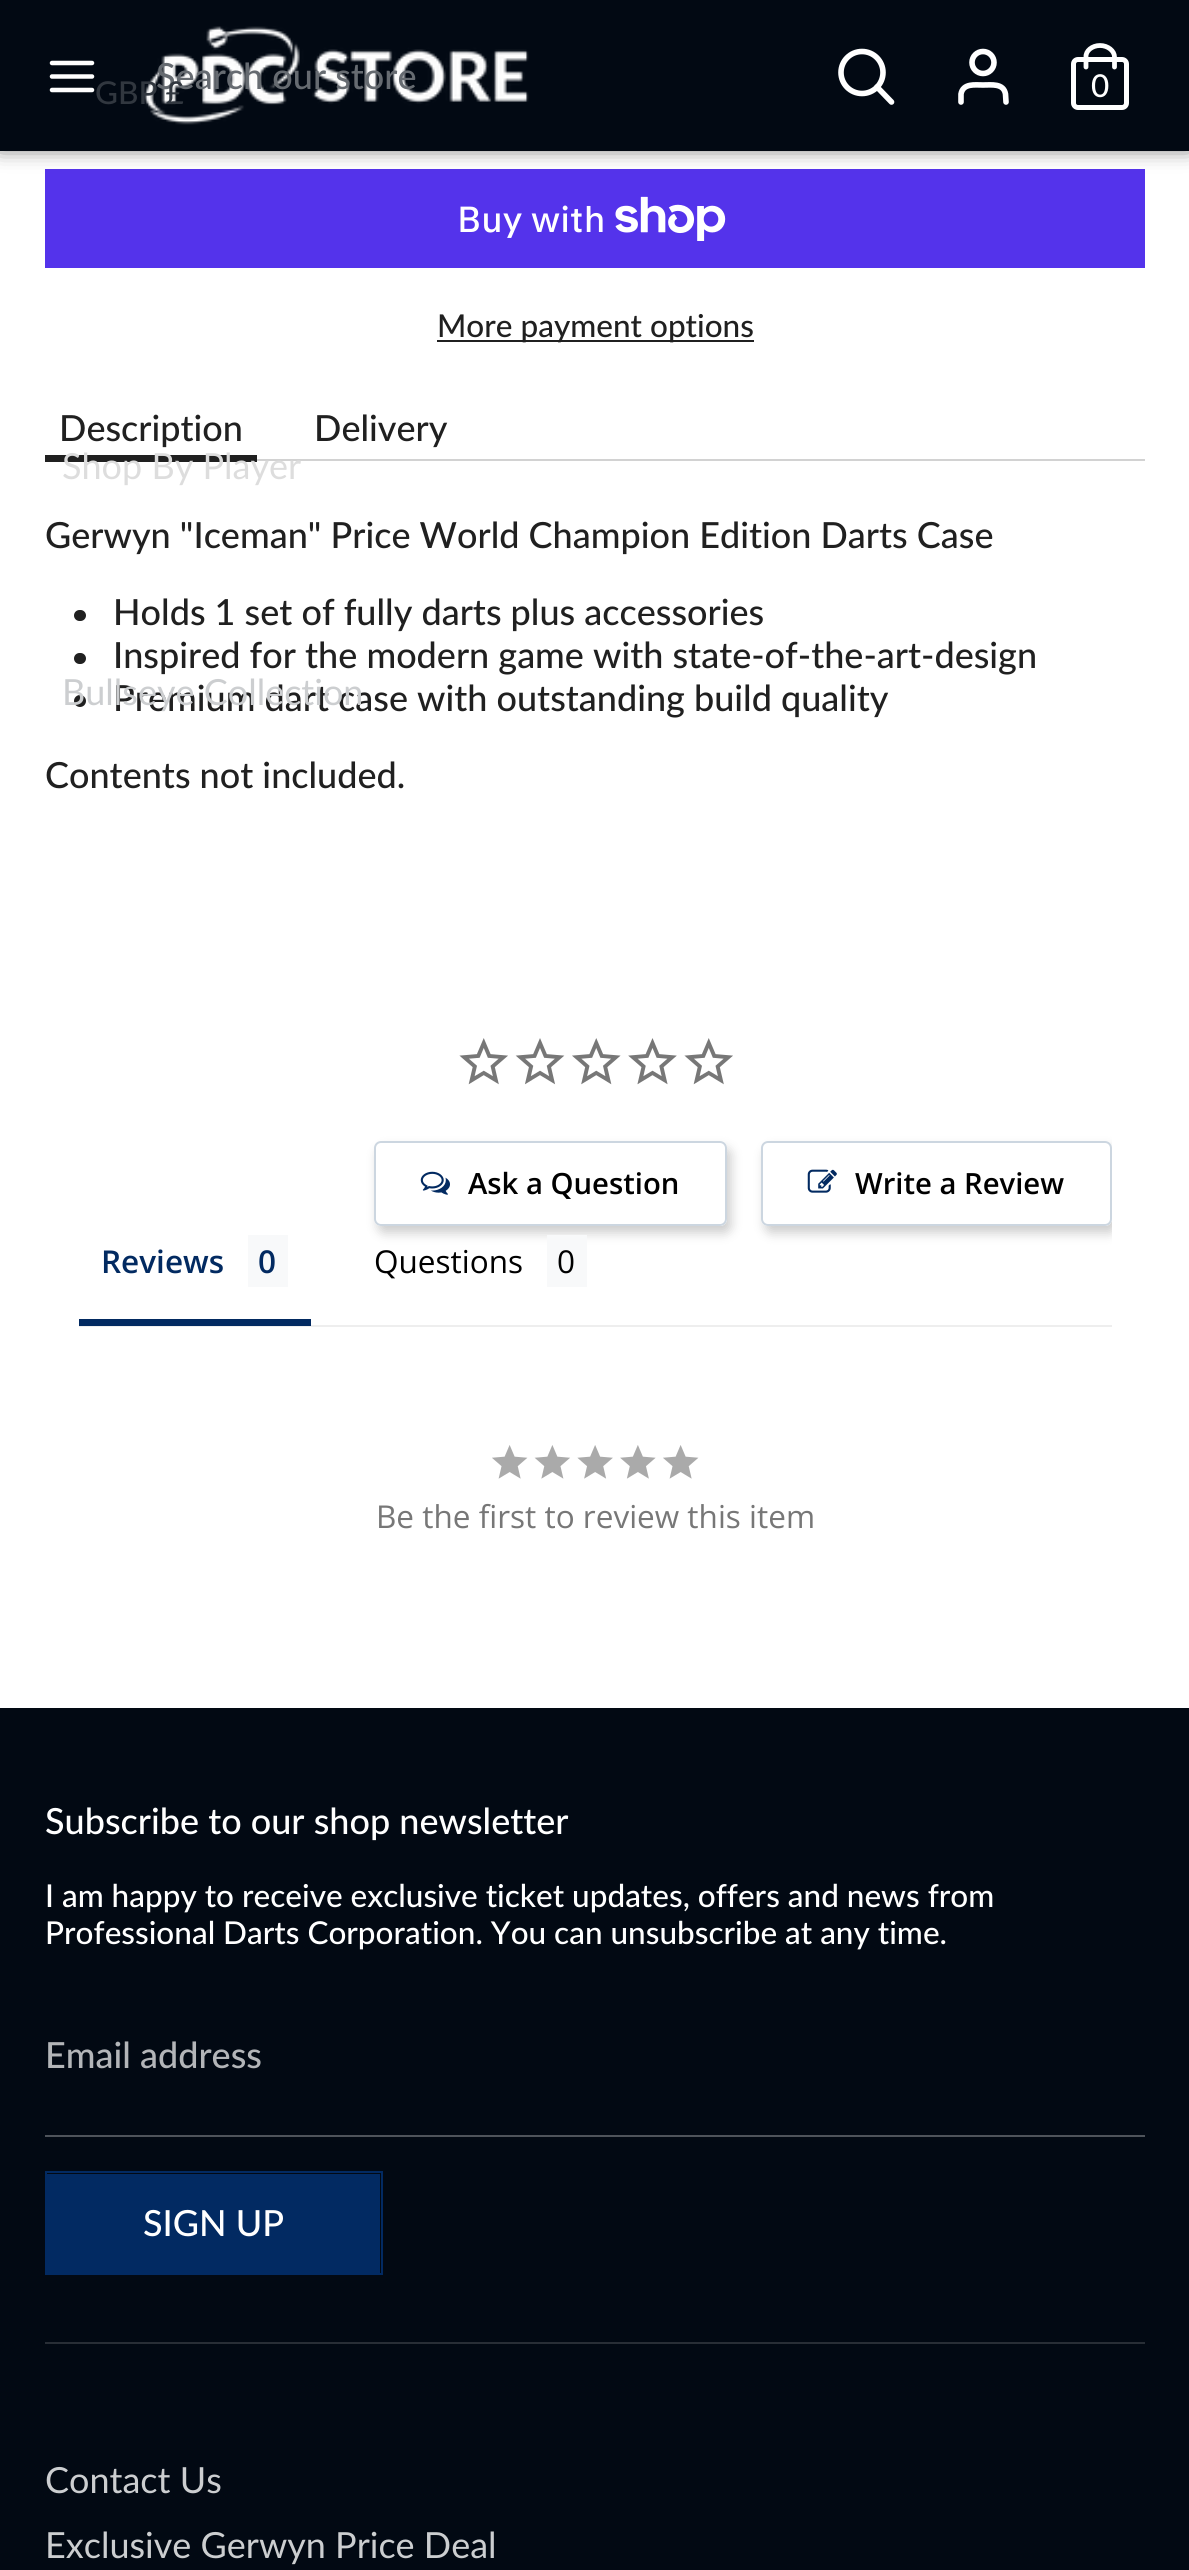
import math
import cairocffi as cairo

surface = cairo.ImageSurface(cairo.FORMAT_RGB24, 1189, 2570)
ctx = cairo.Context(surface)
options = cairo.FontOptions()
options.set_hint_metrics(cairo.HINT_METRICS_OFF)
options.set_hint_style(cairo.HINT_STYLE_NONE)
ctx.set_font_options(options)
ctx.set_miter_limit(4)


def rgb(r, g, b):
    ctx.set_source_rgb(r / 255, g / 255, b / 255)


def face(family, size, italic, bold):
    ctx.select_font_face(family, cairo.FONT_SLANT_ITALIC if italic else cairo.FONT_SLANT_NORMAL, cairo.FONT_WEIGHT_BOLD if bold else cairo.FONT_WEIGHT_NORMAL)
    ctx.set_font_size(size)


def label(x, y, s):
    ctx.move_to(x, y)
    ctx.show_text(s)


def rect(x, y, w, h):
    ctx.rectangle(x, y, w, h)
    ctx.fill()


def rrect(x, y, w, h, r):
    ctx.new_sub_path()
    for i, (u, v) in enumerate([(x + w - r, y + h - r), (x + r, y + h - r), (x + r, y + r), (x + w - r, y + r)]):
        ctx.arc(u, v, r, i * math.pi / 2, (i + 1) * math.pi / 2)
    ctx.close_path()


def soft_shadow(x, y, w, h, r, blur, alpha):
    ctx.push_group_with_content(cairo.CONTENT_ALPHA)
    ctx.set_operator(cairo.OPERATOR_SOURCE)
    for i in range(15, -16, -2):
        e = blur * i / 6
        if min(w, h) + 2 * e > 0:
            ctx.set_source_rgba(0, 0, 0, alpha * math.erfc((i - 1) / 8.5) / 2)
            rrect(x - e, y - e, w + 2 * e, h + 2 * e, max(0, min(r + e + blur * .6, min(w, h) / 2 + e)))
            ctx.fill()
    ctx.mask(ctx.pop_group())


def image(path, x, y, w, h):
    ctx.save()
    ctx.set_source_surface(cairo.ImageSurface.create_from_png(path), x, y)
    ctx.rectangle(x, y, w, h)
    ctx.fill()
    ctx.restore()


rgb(255, 255, 255)
ctx.paint()
rgb(84, 51, 235)
rect(45, 169, 1100, 99)
rgb(0, 0, 0)
soft_shadow(0, -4, 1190, 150, 0, 11, 0.75)
rgb(2, 9, 19)
rect(0, 0, 1189, 151)
ctx.new_path()
ctx.move_to(52, 76.5)
ctx.line_to(92, 76.5)
ctx.move_to(52, 63)
ctx.line_to(92, 63)
ctx.move_to(52, 90)
ctx.line_to(92, 90)
rgb(255, 255, 255)
ctx.set_line_width(4.5)
ctx.set_line_cap(cairo.LINE_CAP_ROUND)
ctx.stroke()
image('image0.png', 143, 26, 386, 99)
face('Lato Medium', 36, 0, 0)
rgb(102, 107, 113)
label(156, 89, 'Search our store')
ctx.new_path()
ctx.arc(862, 72.5, 21, 0, 2 * math.pi)
rgb(255, 255, 255)
ctx.set_line_width(5.6)
ctx.set_line_cap(cairo.LINE_CAP_BUTT)
ctx.stroke()
ctx.new_path()
ctx.move_to(891.5, 102)
ctx.line_to(877, 87)
ctx.set_line_cap(cairo.LINE_CAP_ROUND)
ctx.stroke()
ctx.new_path()
ctx.move_to(1006, 102)
ctx.line_to(1005.5, 94)
ctx.curve_to(1003.5, 83, 991.5, 85, 983, 85)
ctx.curve_to(975, 85, 963, 83, 961, 94)
ctx.line_to(961, 102)
ctx.stroke()
ctx.arc(983, 62.5, 11, 0, 2 * math.pi)
ctx.set_line_cap(cairo.LINE_CAP_BUTT)
ctx.stroke()
rrect(1073.5, 59.5, 53, 48, 4.5)
ctx.set_line_width(5)
ctx.stroke()
ctx.new_path()
ctx.move_to(1086, 67)
ctx.line_to(1086, 57)
ctx.curve_to(1085.5, 51, 1092, 45.5, 1100, 45.5)
ctx.curve_to(1108, 45.5, 1114.5, 51, 1114.5, 57)
ctx.line_to(1114.5, 67)
ctx.set_line_width(4.8)
ctx.set_line_cap(cairo.LINE_CAP_ROUND)
ctx.stroke()
face('Lato Medium', 31.5, 0, 0)
label(1091, 97, '0')
rgb(49, 55, 63)
label(95, 104, 'GBP £')
rgb(210, 210, 210)
rect(257, 459, 888, 2)
rgb(32, 32, 32)
rect(45, 455, 212, 7)
face('Lato', 36, 0, 0)
rgb(221, 221, 221)
label(62, 479, 'Shop By Player')
rgb(32, 32, 32)
ctx.new_path()
ctx.arc(80, 701, 6, 0, 2 * math.pi)
ctx.fill()
face('Lato Medium', 36, 0, 0)
label(113, 711, 'Premium dart case with outstanding build quality')
face('Lato', 36, 0, 0)
rgb(204, 206, 208)
label(62, 705, 'Bullseye Collection')
face('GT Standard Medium', 36, 0, 0)
rgb(255, 255, 255)
label(457, 232, 'Buy with')
image('image1.png', 615, 196, 111, 45)
rgb(32, 32, 32)
rect(437, 340, 317, 2)
face('Lato Medium', 31.5, 0, 0)
label(437, 337, 'More payment options')
face('Lato Medium', 36, 0, 0)
label(59, 441, 'Description')
label(314, 441, 'Delivery')
label(45, 548, 'Gerwyn "Iceman" Price World Champion Edition Darts Case')
rrect(74, 610, 12, 11, 5.5)
ctx.fill()
label(113, 625, 'Holds 1 set of fully darts plus accessories')
rrect(74, 653, 12, 11, 5.5)
ctx.fill()
label(113, 668, 'Inspired for the modern game with state-of-the-art-design')
label(45, 788, 'Contents not included.')
image('image2.png', 459, 1038, 49, 47)
image('image3.png', 515, 1038, 50, 47)
image('image4.png', 572, 1038, 49, 47)
image('image5.png', 628, 1038, 49, 47)
image('image2.png', 684, 1038, 49, 47)
ctx.save()
ctx.set_fill_rule(cairo.FILL_RULE_EVEN_ODD)
ctx.new_path()
ctx.move_to(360, 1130)
ctx.line_to(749, 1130)
ctx.line_to(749, 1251)
ctx.line_to(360, 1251)
ctx.close_path()
ctx.move_to(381, 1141)
ctx.line_to(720, 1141)
ctx.curve_to(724, 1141, 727, 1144, 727, 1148)
ctx.line_to(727, 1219)
ctx.curve_to(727, 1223, 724, 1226, 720, 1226)
ctx.line_to(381, 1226)
ctx.curve_to(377, 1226, 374, 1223, 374, 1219)
ctx.line_to(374, 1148)
ctx.curve_to(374, 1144, 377, 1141, 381, 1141)
ctx.close_path()
ctx.clip()
rgb(136, 136, 136)
soft_shadow(378, 1148, 353, 85, 7, 5.5, 0.42)
ctx.restore()
rrect(375, 1142, 351, 83, 6)
rgb(204, 214, 224)
ctx.set_line_width(2)
ctx.set_line_cap(cairo.LINE_CAP_BUTT)
ctx.stroke()
image('image6.png', 420, 1171, 30, 24)
face('Open Sans SemiBold', 29.25, 0, 0)
rgb(0, 0, 0)
label(468, 1194, 'Ask a Question')
ctx.save()
ctx.rectangle(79, 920, 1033, 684)
ctx.clip()
ctx.set_fill_rule(cairo.FILL_RULE_EVEN_ODD)
ctx.new_path()
ctx.move_to(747, 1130)
ctx.line_to(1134, 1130)
ctx.line_to(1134, 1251)
ctx.line_to(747, 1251)
ctx.close_path()
ctx.move_to(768, 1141)
ctx.line_to(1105, 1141)
ctx.curve_to(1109, 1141, 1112, 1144, 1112, 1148)
ctx.line_to(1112, 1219)
ctx.curve_to(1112, 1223, 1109, 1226, 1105, 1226)
ctx.line_to(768, 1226)
ctx.curve_to(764, 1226, 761, 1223, 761, 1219)
ctx.line_to(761, 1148)
ctx.curve_to(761, 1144, 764, 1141, 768, 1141)
ctx.close_path()
ctx.clip()
rgb(136, 136, 136)
soft_shadow(765, 1148, 351, 85, 7, 5.5, 0.42)
ctx.restore()
rrect(762, 1142, 349, 83, 6)
rgb(204, 214, 224)
ctx.stroke()
image('image7.png', 807, 1169, 30, 24)
rgb(0, 0, 0)
label(855, 1194, 'Write a Review')
rgb(238, 238, 238)
rect(79, 1325, 1033, 2)
rgb(2, 42, 97)
rect(79, 1319, 232, 7)
face('Open Sans SemiBold', 31.5, 0, 0)
label(101, 1273, 'Reviews')
rgb(248, 249, 250)
rect(248, 1235, 40, 52)
rgb(2, 42, 97)
label(258, 1273, '0')
face('Open Sans', 31.5, 0, 0)
rgb(0, 0, 0)
label(374, 1273, 'Questions')
rgb(248, 249, 250)
rect(547, 1235, 40, 52)
rgb(0, 0, 0)
label(557, 1273, '0')
image('image8.png', 492, 1445, 207, 34)
rgb(119, 119, 119)
label(376, 1528, 'Be the first to review this item')
rgb(2, 9, 19)
rect(0, 1708, 1189, 862)
face('Lato Medium', 36, 0, 0)
rgb(255, 255, 255)
label(45, 1834, 'Subscribe to our shop newsletter')
face('Lato Medium', 31.5, 0, 0)
label(45, 1907, 'I am happy to receive exclusive ticket updates, offers and news from')
label(45, 1944, 'Professional Darts Corporation. You can unsubscribe at any time.')
rgb(78, 83, 90)
rect(45, 2135, 1100, 2)
face('Lato Medium', 36, 0, 0)
rgb(179, 181, 184)
label(45, 2068, 'Email address')
ctx.rectangle(46, 2172, 336, 102)
rgb(2, 42, 98)
ctx.stroke()
rect(47, 2174, 333, 99)
rgb(255, 255, 255)
label(143, 2236, 'SIGN UP')
rgb(40, 46, 54)
rect(45, 2342, 1100, 2)
face('Lato', 36, 0, 0)
rgb(204, 206, 208)
label(45, 2493, 'Contact Us')
label(45, 2558, 'Exclusive Gerwyn Price Deal')
surface.write_to_png('render.png')
